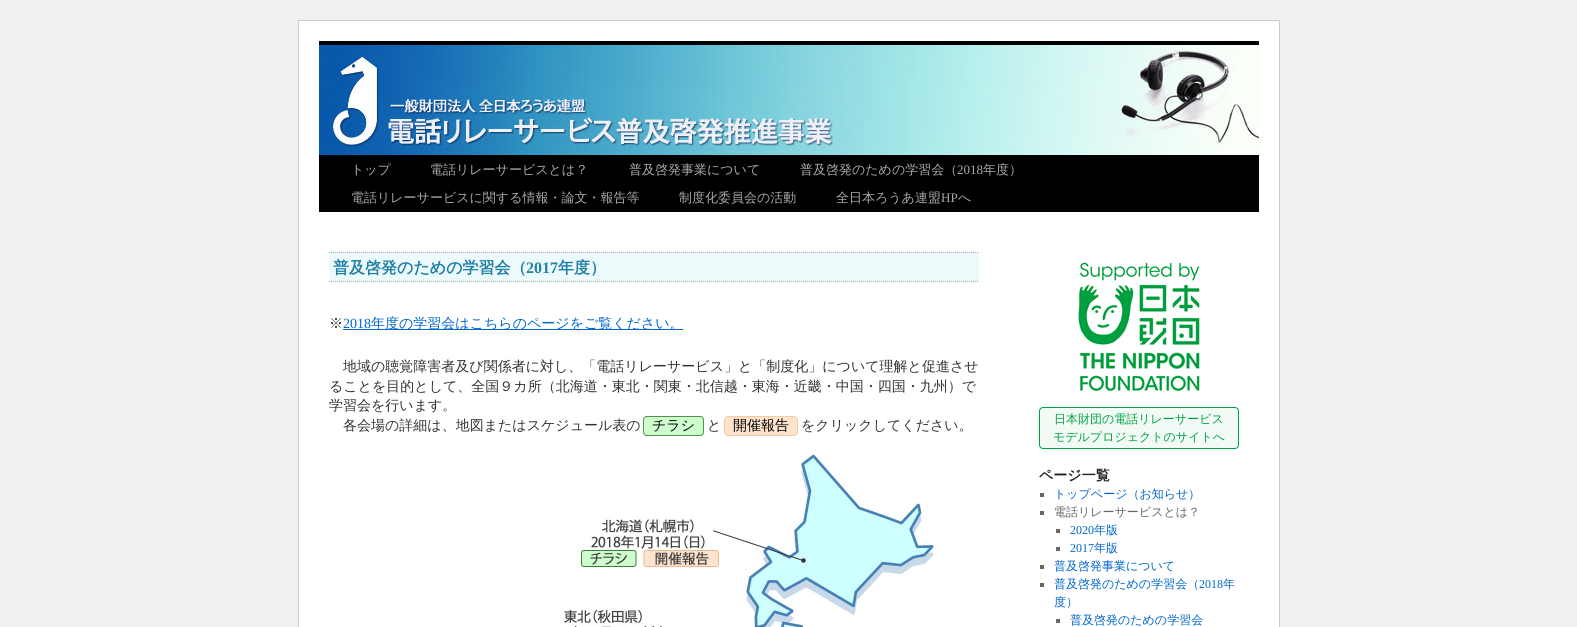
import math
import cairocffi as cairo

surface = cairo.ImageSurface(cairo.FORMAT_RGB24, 1577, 627)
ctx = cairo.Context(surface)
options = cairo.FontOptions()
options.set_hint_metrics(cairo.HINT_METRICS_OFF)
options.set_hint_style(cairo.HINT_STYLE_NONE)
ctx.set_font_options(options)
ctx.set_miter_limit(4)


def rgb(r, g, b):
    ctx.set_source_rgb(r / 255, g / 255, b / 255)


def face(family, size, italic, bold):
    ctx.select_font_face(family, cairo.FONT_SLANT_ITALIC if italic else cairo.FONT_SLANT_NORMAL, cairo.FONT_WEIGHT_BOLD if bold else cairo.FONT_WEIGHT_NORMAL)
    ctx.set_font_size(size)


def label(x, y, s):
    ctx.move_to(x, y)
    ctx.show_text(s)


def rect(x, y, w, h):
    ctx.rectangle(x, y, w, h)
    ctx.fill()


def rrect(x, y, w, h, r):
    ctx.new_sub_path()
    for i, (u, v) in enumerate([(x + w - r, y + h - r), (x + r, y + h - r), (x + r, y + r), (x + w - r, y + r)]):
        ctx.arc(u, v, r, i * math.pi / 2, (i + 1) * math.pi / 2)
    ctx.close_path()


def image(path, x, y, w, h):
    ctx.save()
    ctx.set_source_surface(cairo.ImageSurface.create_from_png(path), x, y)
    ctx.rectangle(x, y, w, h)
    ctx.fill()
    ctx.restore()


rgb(241, 241, 241)
ctx.paint()
rgb(255, 255, 255)
ctx.rectangle(298.5, 20.5, 981, 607)
ctx.fill_preserve()
rgb(204, 204, 204)
ctx.set_line_width(1)
ctx.stroke()
image('image0.png', 319, 45, 940, 110)
rgb(0, 0, 0)
rect(319, 41, 940, 4)
rect(319, 155, 940, 57)
face('WenQuanYi Zen Hei Medium', 13, 0, 0)
rgb(170, 170, 170)
label(351, 174, 'トップ')
label(430, 174, '電話リレーサービスとは？')
label(629, 174, '普及啓発事業について')
label(800, 174, '普及啓発のための学習会（')
face('Liberation Serif', 13, 0, 0)
label(957, 174, '2018')
face('WenQuanYi Zen Hei Medium', 13, 0, 0)
label(983, 174, '年度）')
label(351, 202, '電話リレーサービスに関する情報・論文・報告等')
label(679, 202, '制度化委員会の活動')
label(836, 202, '全日本ろうあ連盟')
face('Liberation Serif', 13, 0, 0)
label(941, 202, 'HP')
face('WenQuanYi Zen Hei Medium', 13, 0, 0)
label(958, 202, 'へ')
rgb(237, 250, 251)
rect(329, 252, 650, 30)
ctx.new_path()
ctx.move_to(329, 252.5)
ctx.line_to(979, 252.5)
rgb(169, 169, 169)
ctx.set_dash([1, 1])
ctx.stroke()
ctx.new_path()
ctx.move_to(329, 281.5)
ctx.line_to(979, 281.5)
ctx.stroke()
face('WenQuanYi Zen Hei', 16, 0, 1)
rgb(32, 128, 166)
label(333, 273, '普及啓発のための学習会（')
face('Liberation Serif', 16, 0, 1)
label(526, 273, '2017')
face('WenQuanYi Zen Hei', 16, 0, 1)
label(558, 273, '年度）')
face('WenQuanYi Zen Hei Medium', 14, 0, 0)
rgb(51, 51, 51)
label(329, 328, '※')
face('Liberation Serif', 14, 0, 0)
rgb(0, 102, 204)
label(343, 328, '2018')
rect(343, 329, 340, 1)
face('WenQuanYi Zen Hei Medium', 14, 0, 0)
label(371, 328, '年度の学習会はこちらのページをご覧ください。')
rgb(51, 51, 51)
label(343, 371, '地域の聴覚障害者及び関係者に対し、「電話リレーサービス」と「制度化」について理解と促進させ')
label(329, 391, 'ることを目的として、全国９カ所（北海道・東北・関東・北信越・東海・近畿・中国・四国・九州）で')
label(329, 410, '学習会を行います。')
label(343, 430, '各会場の詳細は、地図またはスケジュール表の')
rgb(207, 254, 205)
rrect(643.5, 416.5, 60, 19, 3.5)
ctx.fill_preserve()
rgb(80, 145, 77)
ctx.set_dash([])
ctx.stroke()
rgb(0, 0, 0)
label(652, 430, 'チラシ')
rgb(51, 51, 51)
label(707, 430, 'と')
rgb(254, 227, 205)
rrect(724.5, 416.5, 73, 19, 3.5)
ctx.fill_preserve()
rgb(244, 202, 167)
ctx.stroke()
rgb(0, 0, 0)
label(733, 430, '開催報告')
rgb(51, 51, 51)
label(801, 430, 'をクリックしてください。')
image('image1.png', 564, 453, 373, 174)
image('image2.png', 1078, 262, 122, 129)
rgb(242, 250, 245)
rrect(1039.5, 407.5, 199, 41, 3.5)
ctx.fill_preserve()
rgb(0, 160, 64)
ctx.stroke()
face('WenQuanYi Zen Hei Medium', 12, 0, 0)
label(1054, 423, '日本財団の電話リレーサービス')
label(1053, 441, 'モデルプロジェクトのサイトへ')
face('WenQuanYi Zen Hei', 14, 0, 1)
rgb(34, 34, 34)
label(1039, 480, 'ページ一覧')
rgb(102, 102, 102)
rect(1040, 493, 4, 4)
face('WenQuanYi Zen Hei Medium', 12, 0, 0)
rgb(0, 102, 204)
label(1054, 498, 'トップページ（お知らせ）')
rgb(102, 102, 102)
rect(1040, 511, 4, 4)
label(1054, 516, '電話リレーサービスとは？')
rect(1056, 529, 4, 4)
face('Liberation Serif', 12, 0, 0)
rgb(0, 102, 204)
label(1070, 534, '2020')
face('WenQuanYi Zen Hei Medium', 12, 0, 0)
label(1094, 534, '年版')
rgb(102, 102, 102)
rect(1056, 547, 4, 4)
face('Liberation Serif', 12, 0, 0)
rgb(0, 102, 204)
label(1070, 552, '2017')
face('WenQuanYi Zen Hei Medium', 12, 0, 0)
label(1094, 552, '年版')
rgb(102, 102, 102)
rect(1040, 565, 4, 4)
rgb(0, 102, 204)
label(1054, 570, '普及啓発事業について')
rgb(102, 102, 102)
rect(1040, 583, 4, 4)
rgb(0, 102, 204)
label(1054, 588, '普及啓発のための学習会（')
face('Liberation Serif', 12, 0, 0)
label(1199, 588, '2018')
face('WenQuanYi Zen Hei Medium', 12, 0, 0)
label(1223, 588, '年')
label(1054, 606, '度）')
rgb(102, 102, 102)
rect(1056, 619, 4, 4)
rgb(0, 102, 204)
label(1070, 624, '普及啓発のための学習会')
surface.write_to_png('render.png')
